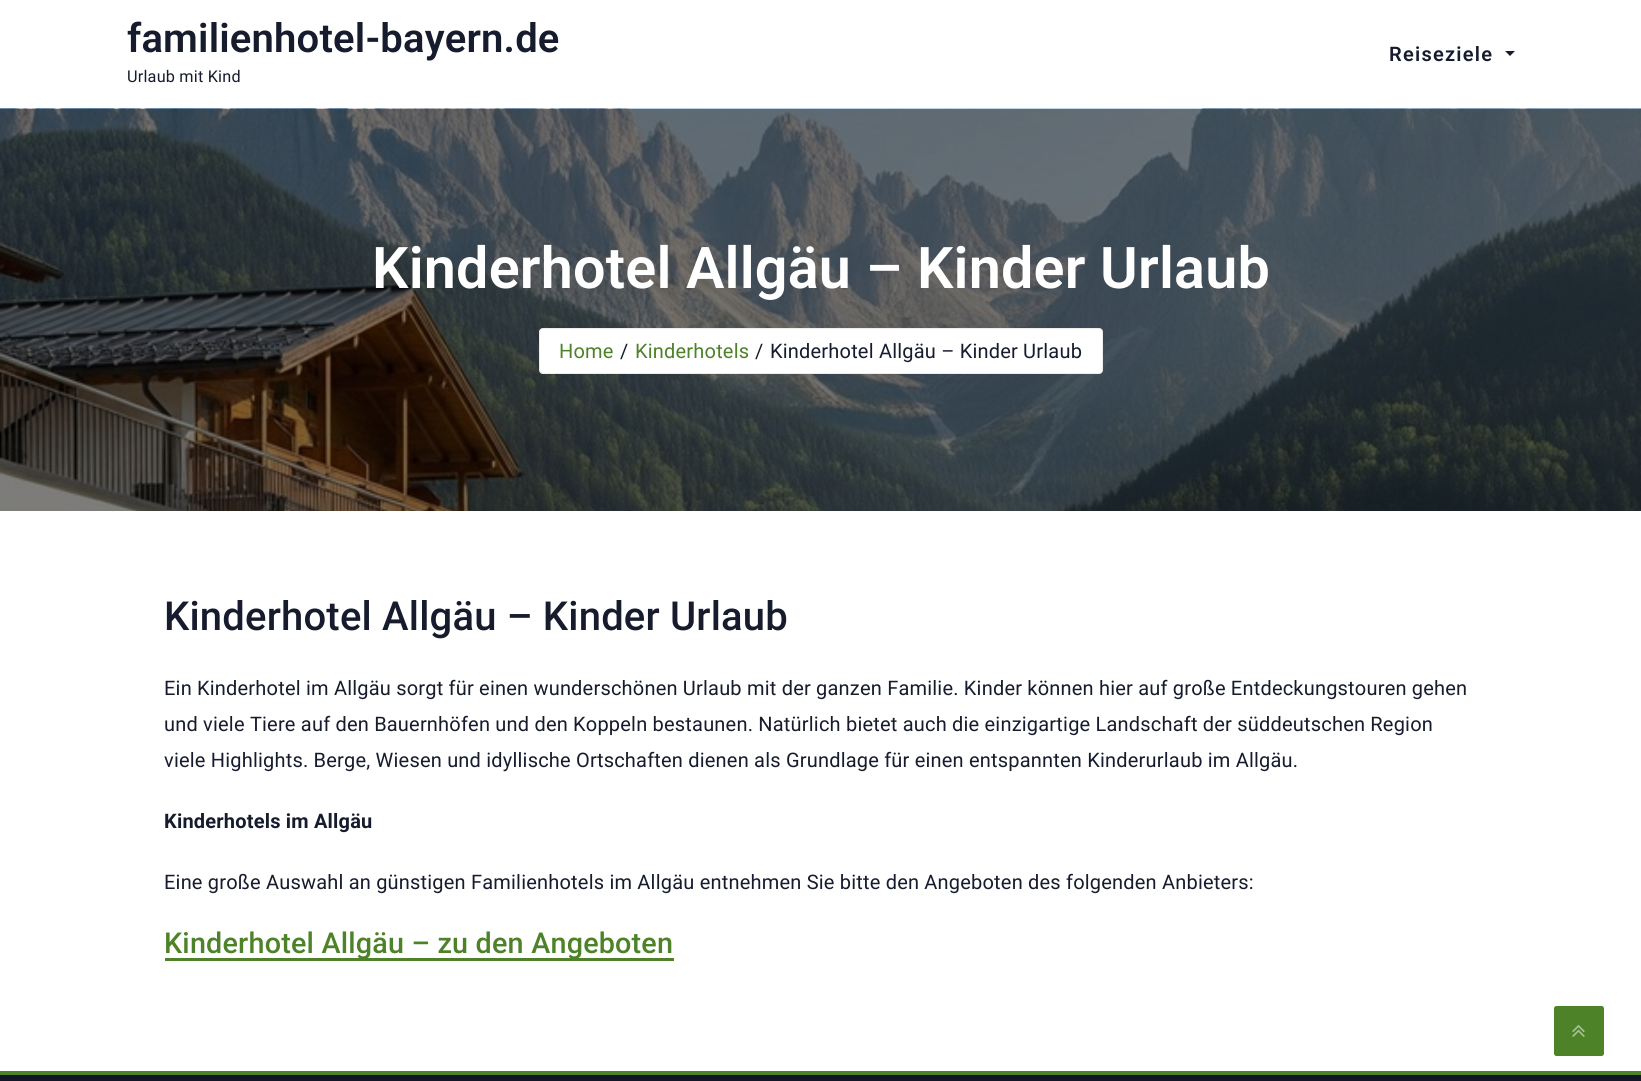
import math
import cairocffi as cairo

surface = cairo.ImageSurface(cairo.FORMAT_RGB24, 1641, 1081)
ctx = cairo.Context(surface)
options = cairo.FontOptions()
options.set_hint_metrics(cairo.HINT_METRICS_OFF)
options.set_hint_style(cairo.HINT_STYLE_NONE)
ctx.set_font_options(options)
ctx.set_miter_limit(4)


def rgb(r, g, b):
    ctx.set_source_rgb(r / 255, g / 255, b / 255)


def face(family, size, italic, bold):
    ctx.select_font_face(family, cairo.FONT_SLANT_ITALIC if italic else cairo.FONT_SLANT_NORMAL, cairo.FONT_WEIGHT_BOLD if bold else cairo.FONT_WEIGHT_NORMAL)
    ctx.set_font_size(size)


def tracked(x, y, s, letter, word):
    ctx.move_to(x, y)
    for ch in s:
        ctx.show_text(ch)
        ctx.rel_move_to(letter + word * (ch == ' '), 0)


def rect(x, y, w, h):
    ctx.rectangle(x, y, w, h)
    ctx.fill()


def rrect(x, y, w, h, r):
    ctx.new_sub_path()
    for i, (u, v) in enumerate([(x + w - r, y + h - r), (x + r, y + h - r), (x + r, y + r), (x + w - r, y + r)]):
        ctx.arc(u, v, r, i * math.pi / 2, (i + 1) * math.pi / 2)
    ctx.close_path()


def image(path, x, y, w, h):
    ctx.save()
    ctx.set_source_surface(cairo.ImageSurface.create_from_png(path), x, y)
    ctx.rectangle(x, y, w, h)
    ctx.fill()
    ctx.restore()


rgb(255, 255, 255)
ctx.paint()
face('Roboto SemiBold', 40, 0, 0)
rgb(22, 28, 45)
tracked(127, 52, 'familienhotel-bayern.de', 0.2, 0)
face('Roboto', 16.25, 0, 0)
tracked(127, 82, 'Urlaub mit Kind', 0.2, 0)
face('Roboto SemiBold', 20, 0, 0)
tracked(1389, 61, 'Reiseziele', 1.25, 0)
ctx.new_path()
ctx.move_to(1505, 51)
ctx.line_to(1515, 51)
ctx.line_to(1510, 56)
ctx.close_path()
ctx.fill()
image('image0.png', 0, 108, 1641, 403)
face('Roboto SemiBold', 57.5, 0, 0)
rgb(255, 255, 255)
tracked(372, 288, 'Kinderhotel Allgäu – Kinder Urlaub', 0.2, 0)
rrect(539.5, 328.5, 563, 45, 3.5)
ctx.fill_preserve()
rgb(236, 236, 236)
ctx.set_line_width(1)
ctx.stroke()
face('Roboto', 20, 0, 0)
rgb(77, 130, 40)
tracked(559, 358, 'Home', 0.2, 0)
rgb(22, 28, 45)
tracked(620, 358, '/', 0.2, 0)
rgb(77, 130, 40)
tracked(635, 358, 'Kinderhotels', 0.2, 0)
rgb(22, 28, 45)
tracked(755, 358, '/', 0.2, 0)
tracked(770, 358, 'Kinderhotel Allgäu – Kinder Urlaub', 0.2, 0)
face('Roboto Medium', 40, 0, 0)
tracked(164, 630, 'Kinderhotel Allgäu – Kinder Urlaub', 0.2, 0)
face('Roboto', 20, 0, 0)
tracked(164, 695, 'Ein Kinderhotel im Allgäu sorgt für einen wunderschönen Urlaub mit der ganzen Familie. Kinder können hier auf große Entdeckungstouren gehen', 0.2, 0)
tracked(164, 731, 'und viele Tiere auf den Bauernhöfen und den Koppeln bestaunen. Natürlich bietet auch die einzigartige Landschaft der süddeutschen Region', 0.2, 0)
tracked(164, 767, 'viele Highlights. Berge, Wiesen und idyllische Ortschaften dienen als Grundlage für einen entspannten Kinderurlaub im Allgäu.', 0.2, 0)
face('Roboto', 20, 0, 1)
tracked(164, 828, 'Kinderhotels im Allgäu', 0.2, 0)
face('Roboto', 20, 0, 0)
tracked(164, 889, 'Eine große Auswahl an günstigen Familienhotels im Allgäu entnehmen Sie bitte den Angeboten des folgenden Anbieters:', 0.2, 0)
rgb(77, 130, 40)
rect(165, 958, 509, 3)
face('Roboto Medium', 28.75, 0, 0)
tracked(164, 953, 'Kinderhotel Allgäu – zu den Angeboten', 0.2, 0)
rect(0, 1071, 1641, 4)
rgb(18, 22, 36)
rect(0, 1075, 1641, 6)
rgb(77, 130, 40)
rrect(1554, 1006, 50, 50, 2.5)
ctx.fill()
image('image1.png', 1572, 1024, 13, 13)
surface.write_to_png('render.png')
